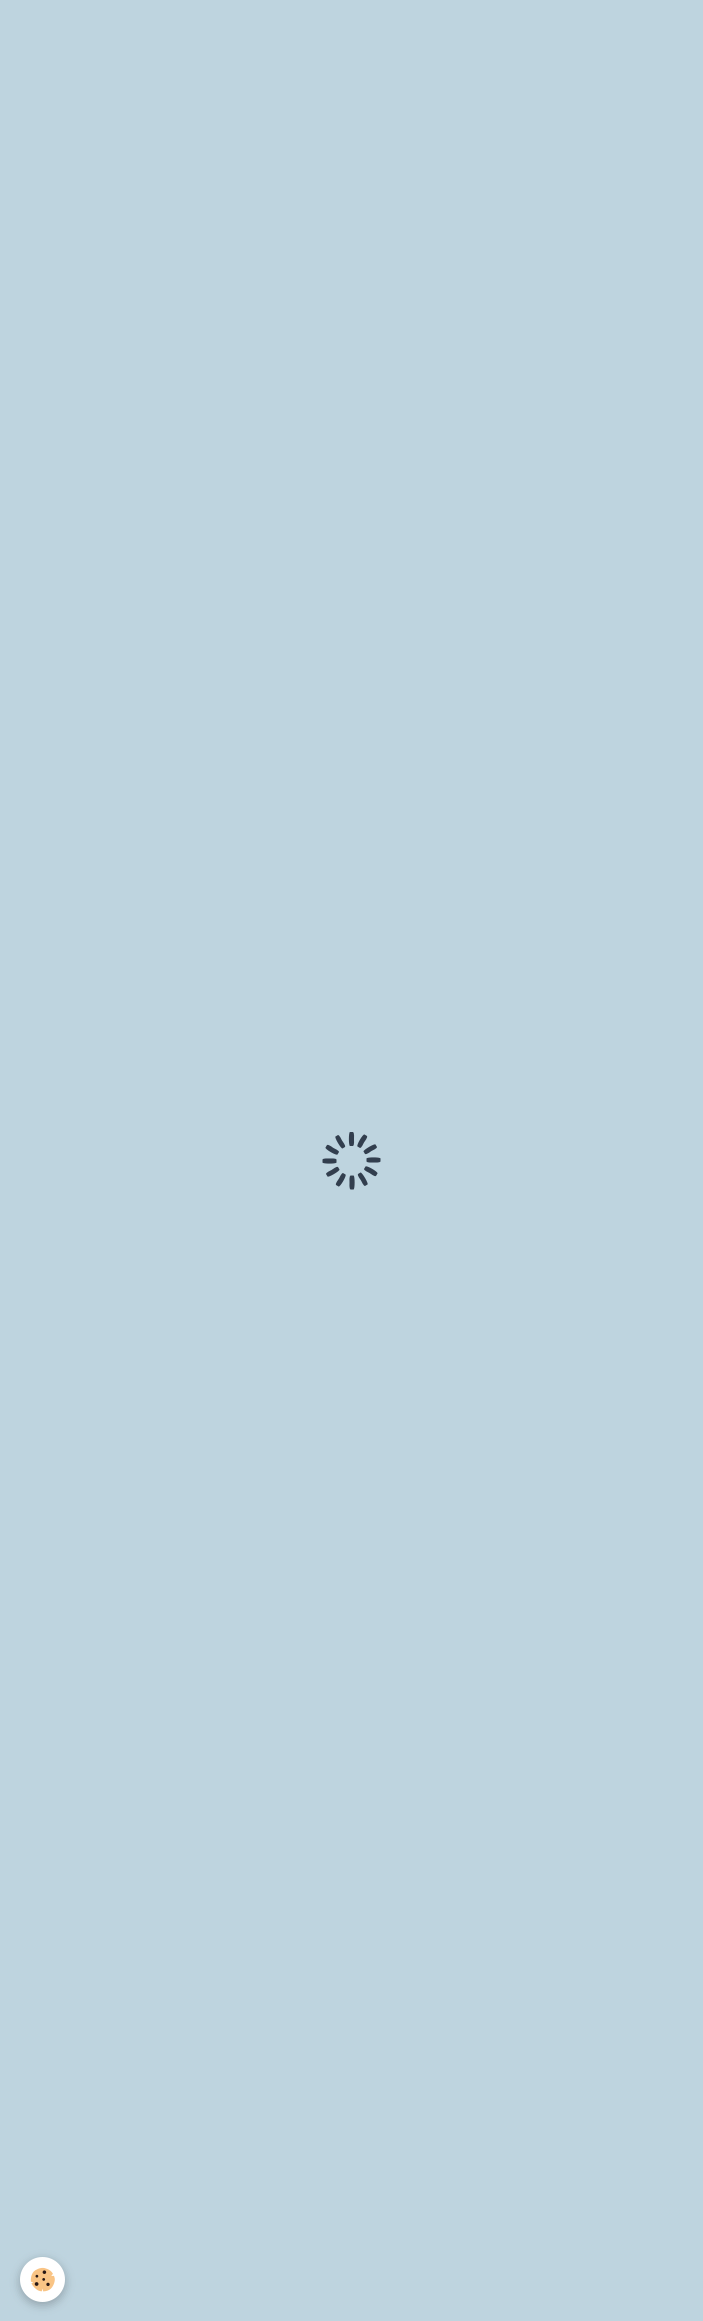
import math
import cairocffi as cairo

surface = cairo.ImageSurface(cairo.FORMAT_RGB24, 703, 2321)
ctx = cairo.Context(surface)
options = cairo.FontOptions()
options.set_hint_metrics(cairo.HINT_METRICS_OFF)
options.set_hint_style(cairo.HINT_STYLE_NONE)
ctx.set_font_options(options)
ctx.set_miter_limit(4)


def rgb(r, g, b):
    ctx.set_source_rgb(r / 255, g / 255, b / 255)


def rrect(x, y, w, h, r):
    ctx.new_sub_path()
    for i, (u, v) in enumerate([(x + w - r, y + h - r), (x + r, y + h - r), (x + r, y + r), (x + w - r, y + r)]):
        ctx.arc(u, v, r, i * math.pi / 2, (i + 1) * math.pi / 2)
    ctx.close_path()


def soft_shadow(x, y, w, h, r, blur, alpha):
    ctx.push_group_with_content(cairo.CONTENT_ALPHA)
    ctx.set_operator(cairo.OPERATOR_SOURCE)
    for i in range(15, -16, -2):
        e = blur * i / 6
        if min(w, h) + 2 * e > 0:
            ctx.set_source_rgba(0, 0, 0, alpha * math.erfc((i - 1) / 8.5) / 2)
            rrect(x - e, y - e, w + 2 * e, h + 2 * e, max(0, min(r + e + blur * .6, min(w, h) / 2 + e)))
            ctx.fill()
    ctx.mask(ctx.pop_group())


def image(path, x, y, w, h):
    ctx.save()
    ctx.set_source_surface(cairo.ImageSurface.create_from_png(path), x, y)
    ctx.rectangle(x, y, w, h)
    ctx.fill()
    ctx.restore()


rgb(190, 212, 223)
ctx.paint()
rgb(50, 62, 78)
ctx.new_path()
ctx.move_to(350, 1132)
ctx.line_to(353, 1132)
ctx.curve_to(354.5, 1133, 354, 1138, 354, 1139)
ctx.curve_to(354, 1140, 354.5, 1145, 353, 1146)
ctx.line_to(350, 1146)
ctx.curve_to(348.5, 1146, 348.5, 1132, 350, 1132)
ctx.close_path()
ctx.move_to(364.5, 1134.5)
ctx.line_to(367, 1136)
ctx.curve_to(368, 1137.5, 364.5, 1141.5, 364, 1142.5)
ctx.curve_to(363.5, 1143.5, 361.5, 1148, 360, 1148)
ctx.line_to(357.5, 1146.5)
ctx.curve_to(356, 1145.5, 363, 1133.5, 364.5, 1134.5)
ctx.close_path()
ctx.fill()
ctx.new_path()
ctx.move_to(375.5, 1144.5)
ctx.line_to(377, 1147)
ctx.curve_to(377, 1148.5, 372.5, 1150.5, 371.5, 1151)
ctx.curve_to(370.5, 1151.5, 366.5, 1155, 365, 1154)
ctx.line_to(363.5, 1151.5)
ctx.curve_to(363, 1150, 375, 1143, 375.5, 1144.5)
ctx.close_path()
ctx.move_to(380.5, 1158.5)
ctx.line_to(380.5, 1161.5)
ctx.curve_to(379.5, 1163, 374.5, 1162.5, 373.5, 1162.5)
ctx.curve_to(372.5, 1162.5, 367.5, 1163, 366.5, 1161.5)
ctx.line_to(366.5, 1158.5)
ctx.curve_to(366.5, 1157, 380.5, 1157, 380.5, 1158.5)
ctx.close_path()
ctx.move_to(377.5, 1173.5)
ctx.line_to(376, 1176)
ctx.curve_to(374.5, 1177, 370.5, 1173.5, 369.5, 1173)
ctx.curve_to(368.5, 1172.5, 364, 1170.5, 364, 1169)
ctx.line_to(365.5, 1166.5)
ctx.curve_to(366.5, 1165, 378.5, 1172, 377.5, 1173.5)
ctx.close_path()
ctx.fill()
ctx.new_path()
ctx.move_to(367.5, 1184.5)
ctx.line_to(365, 1186)
ctx.curve_to(363.5, 1186, 361.5, 1181.5, 361, 1180.5)
ctx.curve_to(360.5, 1179.5, 357, 1175.5, 358, 1174)
ctx.line_to(360.5, 1172.5)
ctx.curve_to(362, 1172, 369, 1184, 367.5, 1184.5)
ctx.close_path()
ctx.move_to(353.5, 1189.5)
ctx.line_to(350.5, 1189.5)
ctx.curve_to(349, 1188.5, 349.5, 1183.5, 349.5, 1182.5)
ctx.curve_to(349.5, 1181.5, 349, 1176.5, 350.5, 1175.5)
ctx.line_to(353.5, 1175.5)
ctx.curve_to(355, 1175.5, 355, 1189.5, 353.5, 1189.5)
ctx.close_path()
ctx.move_to(338.5, 1186.5)
ctx.line_to(336, 1185)
ctx.curve_to(335, 1183.5, 338.5, 1179.5, 339, 1178.5)
ctx.curve_to(339.5, 1177.5, 341.5, 1173, 343, 1173)
ctx.line_to(345.5, 1174.5)
ctx.curve_to(347, 1175.5, 340, 1187.5, 338.5, 1186.5)
ctx.close_path()
ctx.fill()
ctx.new_path()
ctx.move_to(327.5, 1176.5)
ctx.line_to(326, 1174)
ctx.curve_to(326, 1172.5, 330.5, 1170.5, 331.5, 1170)
ctx.curve_to(332.5, 1169.5, 336.5, 1166, 338, 1167)
ctx.line_to(339.5, 1169.5)
ctx.curve_to(340, 1171, 328, 1178, 327.5, 1176.5)
ctx.close_path()
ctx.move_to(322.5, 1162.5)
ctx.line_to(322.5, 1159.5)
ctx.curve_to(323.5, 1158, 328.5, 1158.5, 329.5, 1158.5)
ctx.curve_to(330.5, 1158.5, 335.5, 1158, 336.5, 1159.5)
ctx.line_to(336.5, 1162.5)
ctx.curve_to(336.5, 1164, 322.5, 1164, 322.5, 1162.5)
ctx.close_path()
ctx.move_to(325.5, 1147.5)
ctx.line_to(327, 1145)
ctx.curve_to(328.5, 1144, 332.5, 1147.5, 333.5, 1148)
ctx.curve_to(334.5, 1148.5, 339, 1150.5, 339, 1152)
ctx.line_to(337.5, 1154.5)
ctx.curve_to(336.5, 1156, 324.5, 1149, 325.5, 1147.5)
ctx.close_path()
ctx.fill()
ctx.new_path()
ctx.move_to(335.5, 1136.5)
ctx.line_to(338, 1135)
ctx.curve_to(339.5, 1135, 341.5, 1139.5, 342, 1140.5)
ctx.curve_to(342.5, 1141.5, 346, 1145.5, 345, 1147)
ctx.line_to(342.5, 1148.5)
ctx.curve_to(341, 1149, 334, 1137, 335.5, 1136.5)
ctx.close_path()
ctx.fill()
rgb(0, 0, 0)
soft_shadow(20, 2260, 45, 45, 22.5, 5, 0.24)
rgb(255, 255, 255)
ctx.arc(42.5, 2279.5, 22.5, 0, 2 * math.pi)
ctx.fill()
image('image0.png', 30, 2267, 25, 25)
surface.write_to_png('render.png')
